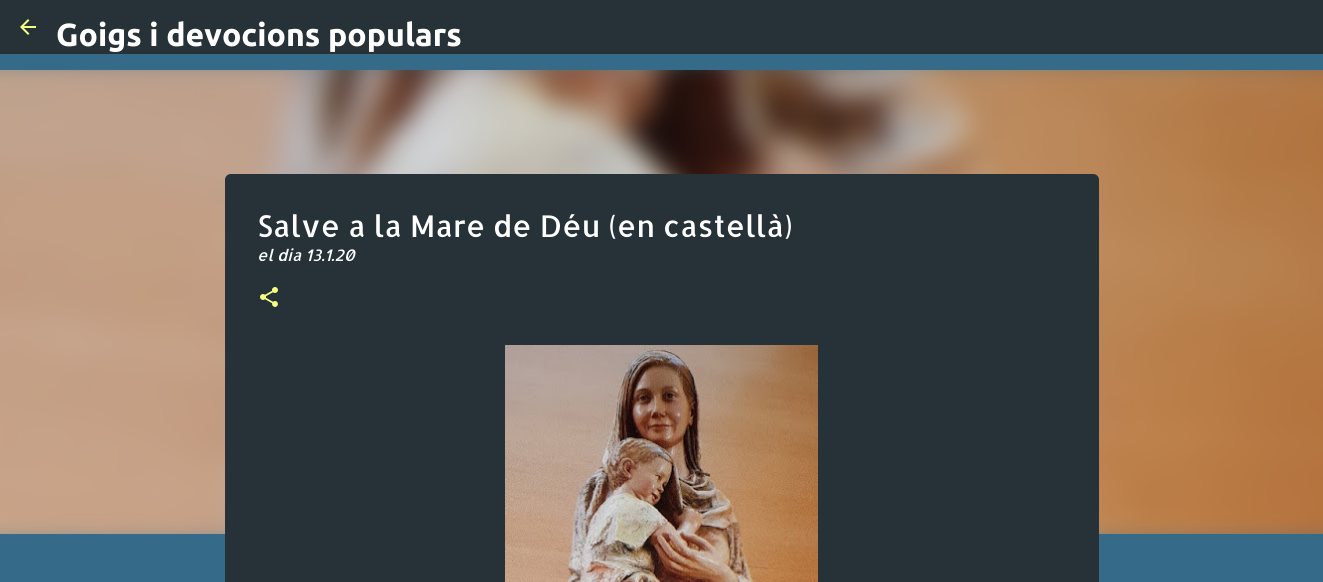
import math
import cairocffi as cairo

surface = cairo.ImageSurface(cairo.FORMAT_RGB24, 1323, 582)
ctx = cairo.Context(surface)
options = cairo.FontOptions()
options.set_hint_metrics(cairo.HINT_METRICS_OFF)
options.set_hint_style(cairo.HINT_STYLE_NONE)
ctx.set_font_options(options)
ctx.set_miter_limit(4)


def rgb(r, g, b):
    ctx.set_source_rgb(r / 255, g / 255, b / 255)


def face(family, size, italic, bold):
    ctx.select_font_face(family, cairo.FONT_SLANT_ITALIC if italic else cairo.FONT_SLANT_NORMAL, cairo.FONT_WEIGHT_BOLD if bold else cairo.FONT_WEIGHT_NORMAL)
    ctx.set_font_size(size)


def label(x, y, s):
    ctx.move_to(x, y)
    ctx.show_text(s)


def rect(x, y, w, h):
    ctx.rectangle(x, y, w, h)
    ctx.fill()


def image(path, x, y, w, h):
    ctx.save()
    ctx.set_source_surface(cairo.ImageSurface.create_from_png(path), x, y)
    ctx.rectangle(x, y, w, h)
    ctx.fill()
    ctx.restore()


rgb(53, 106, 137)
ctx.paint()
rgb(38, 50, 56)
rect(0, 0, 1323, 54)
image('image0.png', 20, 19, 16, 16)
face('Ubuntu', 32, 0, 1)
rgb(255, 255, 255)
label(56, 46, 'Goigs i devocions populars')
image('image3.png', 0, 70, 1323, 464)
rgb(38, 50, 56)
ctx.new_path()
ctx.move_to(231, 174)
ctx.line_to(1093, 174)
ctx.curve_to(1096.5, 174, 1099, 176.5, 1099, 180)
ctx.line_to(1099, 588)
ctx.line_to(225, 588)
ctx.line_to(225, 180)
ctx.curve_to(225, 176.5, 227.5, 174, 231, 174)
ctx.close_path()
ctx.fill()
face('Allerta', 30, 0, 0)
rgb(255, 255, 255)
label(257, 237, 'Salve a la Mare de Déu (en castellà)')
face('Allerta', 16, 1, 0)
label(257, 261, 'el dia 13.1.20')
image('image1.png', 260, 287, 18, 20)
image('image2.png', 505, 345, 313, 237)
surface.write_to_png('render.png')
